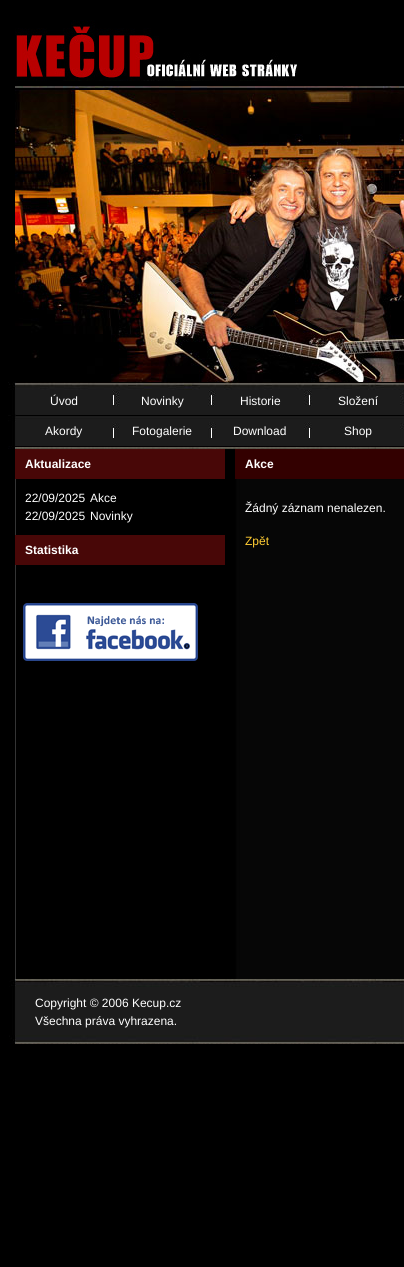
import math
import cairocffi as cairo

surface = cairo.ImageSurface(cairo.FORMAT_RGB24, 404, 1267)
ctx = cairo.Context(surface)
options = cairo.FontOptions()
options.set_hint_metrics(cairo.HINT_METRICS_OFF)
options.set_hint_style(cairo.HINT_STYLE_NONE)
ctx.set_font_options(options)
ctx.set_miter_limit(4)


def rgb(r, g, b):
    ctx.set_source_rgb(r / 255, g / 255, b / 255)


def face(family, size, italic, bold):
    ctx.select_font_face(family, cairo.FONT_SLANT_ITALIC if italic else cairo.FONT_SLANT_NORMAL, cairo.FONT_WEIGHT_BOLD if bold else cairo.FONT_WEIGHT_NORMAL)
    ctx.set_font_size(size)


def label(x, y, s):
    ctx.move_to(x, y)
    ctx.show_text(s)


def rect(x, y, w, h):
    ctx.rectangle(x, y, w, h)
    ctx.fill()


def image(path, x, y, w, h):
    ctx.save()
    ctx.set_source_surface(cairo.ImageSurface.create_from_png(path), x, y)
    ctx.rectangle(x, y, w, h)
    ctx.fill()
    ctx.restore()


rgb(0, 0, 0)
ctx.paint()
image('image0.png', 15, 20, 282, 61)
image('image1.png', 15, 86, 389, 296)
image('image2.png', 8, 382, 396, 67)
face('Liberation Sans', 12, 0, 0)
rgb(255, 255, 255)
label(50, 405, 'Úvod')
label(141, 405, 'Novinky')
label(240, 405, 'Historie')
label(338, 405, 'Složení')
label(45, 435, 'Akordy')
label(132, 435, 'Fotogalerie')
label(233, 435, 'Download')
label(344, 435, 'Shop')
image('image3.png', 15, 449, 389, 530)
rgb(72, 7, 7)
rect(15, 449, 210, 30)
face('Liberation Sans', 12, 0, 1)
rgb(255, 255, 255)
label(25, 468, 'Aktualizace')
face('Liberation Sans', 12, 0, 0)
label(25, 502, '22/09/2025')
label(90, 502, 'Akce')
label(25, 520, '22/09/2025')
label(90, 520, 'Novinky')
rgb(72, 7, 7)
rect(15, 535, 210, 30)
face('Liberation Sans', 12, 0, 1)
rgb(255, 255, 255)
label(25, 554, 'Statistika')
image('image4.png', 23, 603, 175, 58)
rgb(51, 0, 0)
rect(235, 449, 169, 30)
rgb(255, 255, 255)
label(245, 468, 'Akce')
face('Liberation Sans', 12, 0, 0)
label(245, 512, 'Žádný záznam nenalezen.')
rgb(255, 204, 51)
label(245, 545, 'Zpět')
image('image5.png', 9, 979, 395, 65)
rgb(255, 255, 255)
label(35, 1007, 'Copyright © 2006 Kecup.cz')
label(35, 1025, 'Všechna práva vyhrazena.')
surface.write_to_png('render.png')
